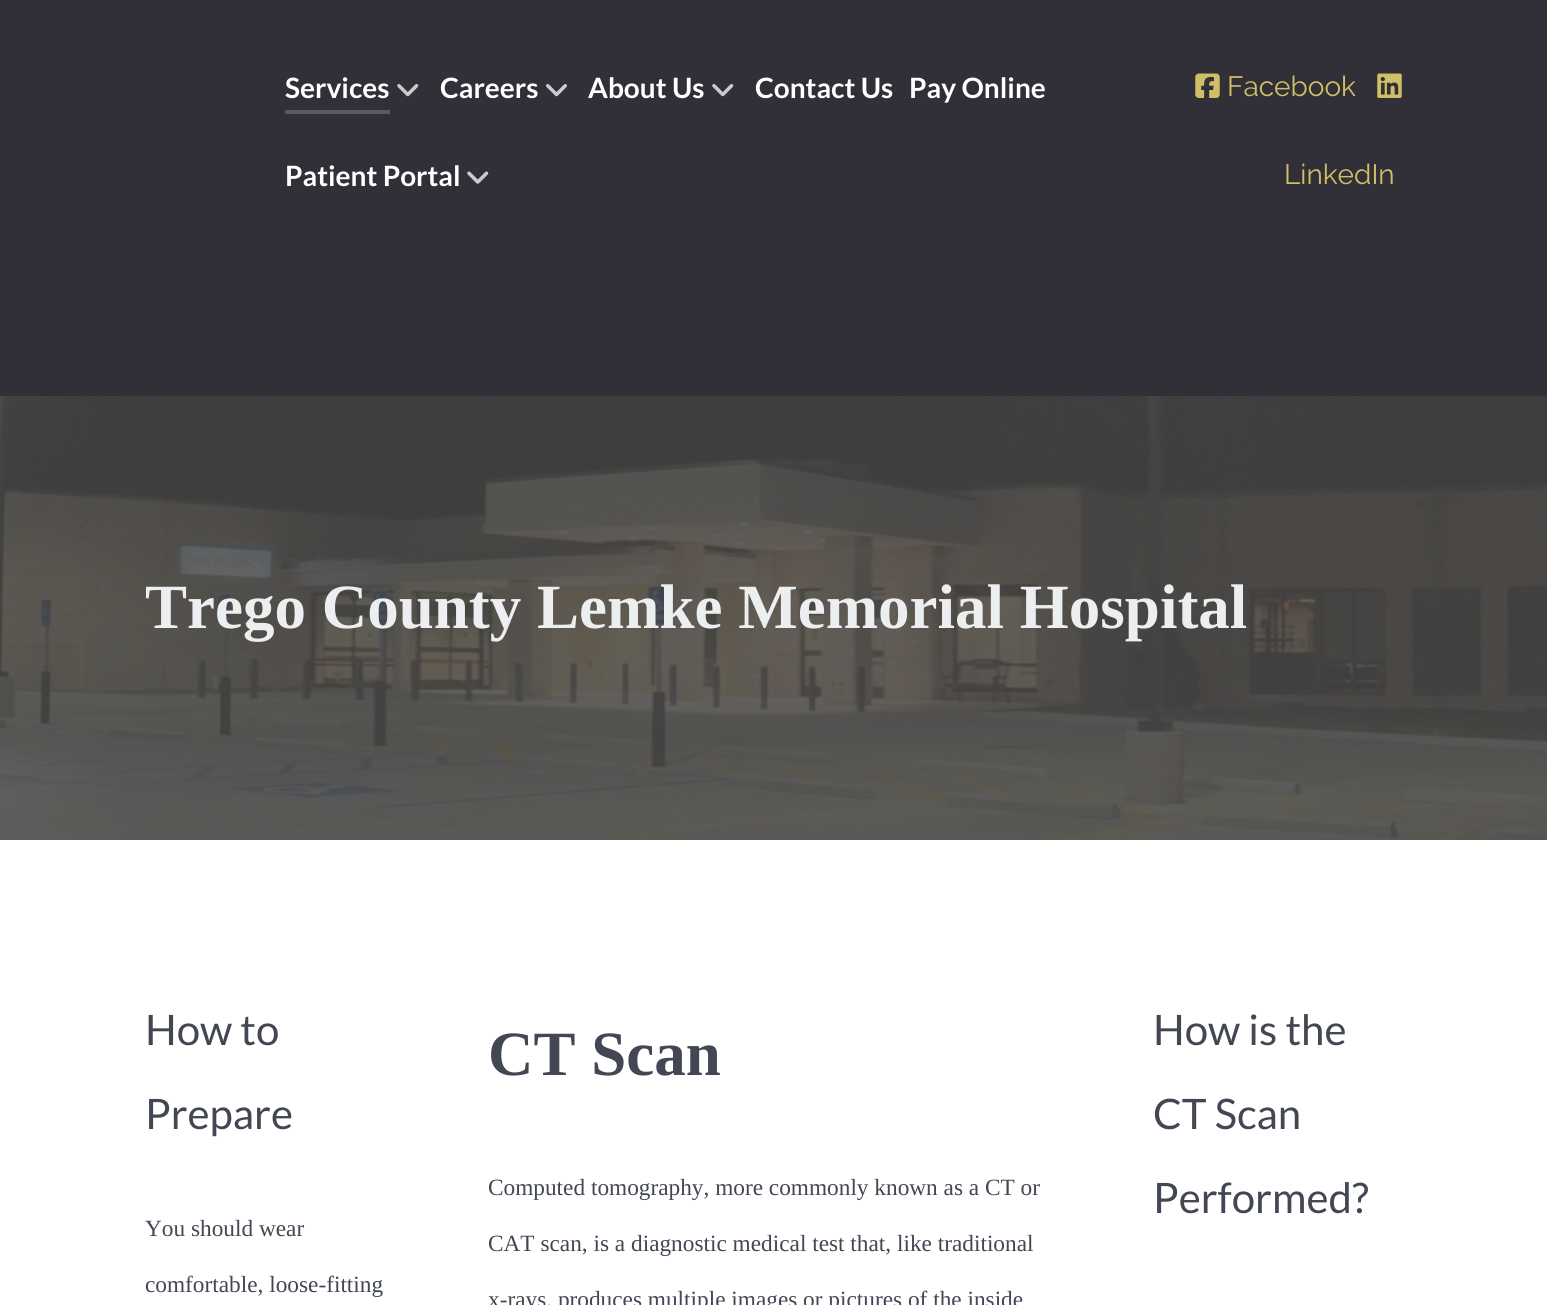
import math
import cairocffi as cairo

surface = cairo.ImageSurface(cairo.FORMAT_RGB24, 1547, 1305)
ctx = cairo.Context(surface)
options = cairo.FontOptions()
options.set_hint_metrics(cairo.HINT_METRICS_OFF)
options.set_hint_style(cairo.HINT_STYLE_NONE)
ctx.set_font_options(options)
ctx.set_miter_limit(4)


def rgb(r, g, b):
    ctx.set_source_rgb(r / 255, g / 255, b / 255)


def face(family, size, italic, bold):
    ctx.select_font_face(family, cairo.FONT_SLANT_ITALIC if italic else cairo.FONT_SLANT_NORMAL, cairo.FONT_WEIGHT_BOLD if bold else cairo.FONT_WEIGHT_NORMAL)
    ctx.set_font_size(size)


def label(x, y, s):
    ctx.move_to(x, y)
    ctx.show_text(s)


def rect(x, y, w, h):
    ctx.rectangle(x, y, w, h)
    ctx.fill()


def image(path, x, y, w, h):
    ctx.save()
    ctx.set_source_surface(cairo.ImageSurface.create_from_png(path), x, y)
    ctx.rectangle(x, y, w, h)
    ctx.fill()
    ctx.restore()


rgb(255, 255, 255)
ctx.paint()
rgb(49, 47, 56)
rect(0, 0, 1547, 396)
rgb(90, 89, 96)
ctx.new_path()
ctx.move_to(285, 75)
ctx.line_to(285, 114)
ctx.line_to(390, 114)
ctx.line_to(390, 110)
ctx.line_to(285, 110)
ctx.close_path()
ctx.fill()
face('Lato', 28, 0, 1)
rgb(255, 255, 255)
label(285, 98, 'Services')
image('image0.png', 397, 84, 22, 13)
label(440, 98, 'Careers')
image('image1.png', 546, 84, 21, 13)
label(588, 98, 'About Us')
image('image0.png', 712, 84, 22, 13)
label(755, 98, 'Contact Us')
label(909, 98, 'Pay Online')
label(285, 186, 'Patient Portal')
image('image2.png', 467, 171, 22, 13)
image('image3.png', 1195, 73, 25, 25)
face('Raleway', 28, 0, 0)
rgb(208, 191, 102)
label(1227, 96, 'Facebook')
image('image4.png', 1377, 73, 25, 25)
label(1284, 184, 'LinkedIn')
image('image5.png', 0, 396, 1547, 444)
face('Liberation Serif', 63, 0, 1)
rgb(236, 238, 239)
label(145, 628, 'Trego County Lemke Memorial Hospital')
face('Lato', 42, 0, 0)
rgb(66, 71, 83)
label(145, 1045, 'How to')
label(145, 1129, 'Prepare')
face('Liberation Serif', 23.3, 0, 0)
label(145, 1236, 'You should wear')
label(145, 1292, 'comfortable, loose-fitting')
face('Liberation Serif', 63, 0, 1)
label(488, 1075, 'CT Scan')
face('Liberation Serif', 23.3, 0, 0)
label(488, 1195, 'Computed tomography, more commonly known as a CT or')
label(488, 1251, 'CAT scan, is a diagnostic medical test that, like traditional')
label(488, 1307, 'x-rays, produces multiple images or pictures of the inside')
face('Lato', 42, 0, 0)
label(1153, 1045, 'How is the')
label(1153, 1129, 'CT Scan')
label(1153, 1213, 'Performed?')
surface.write_to_png('render.png')
